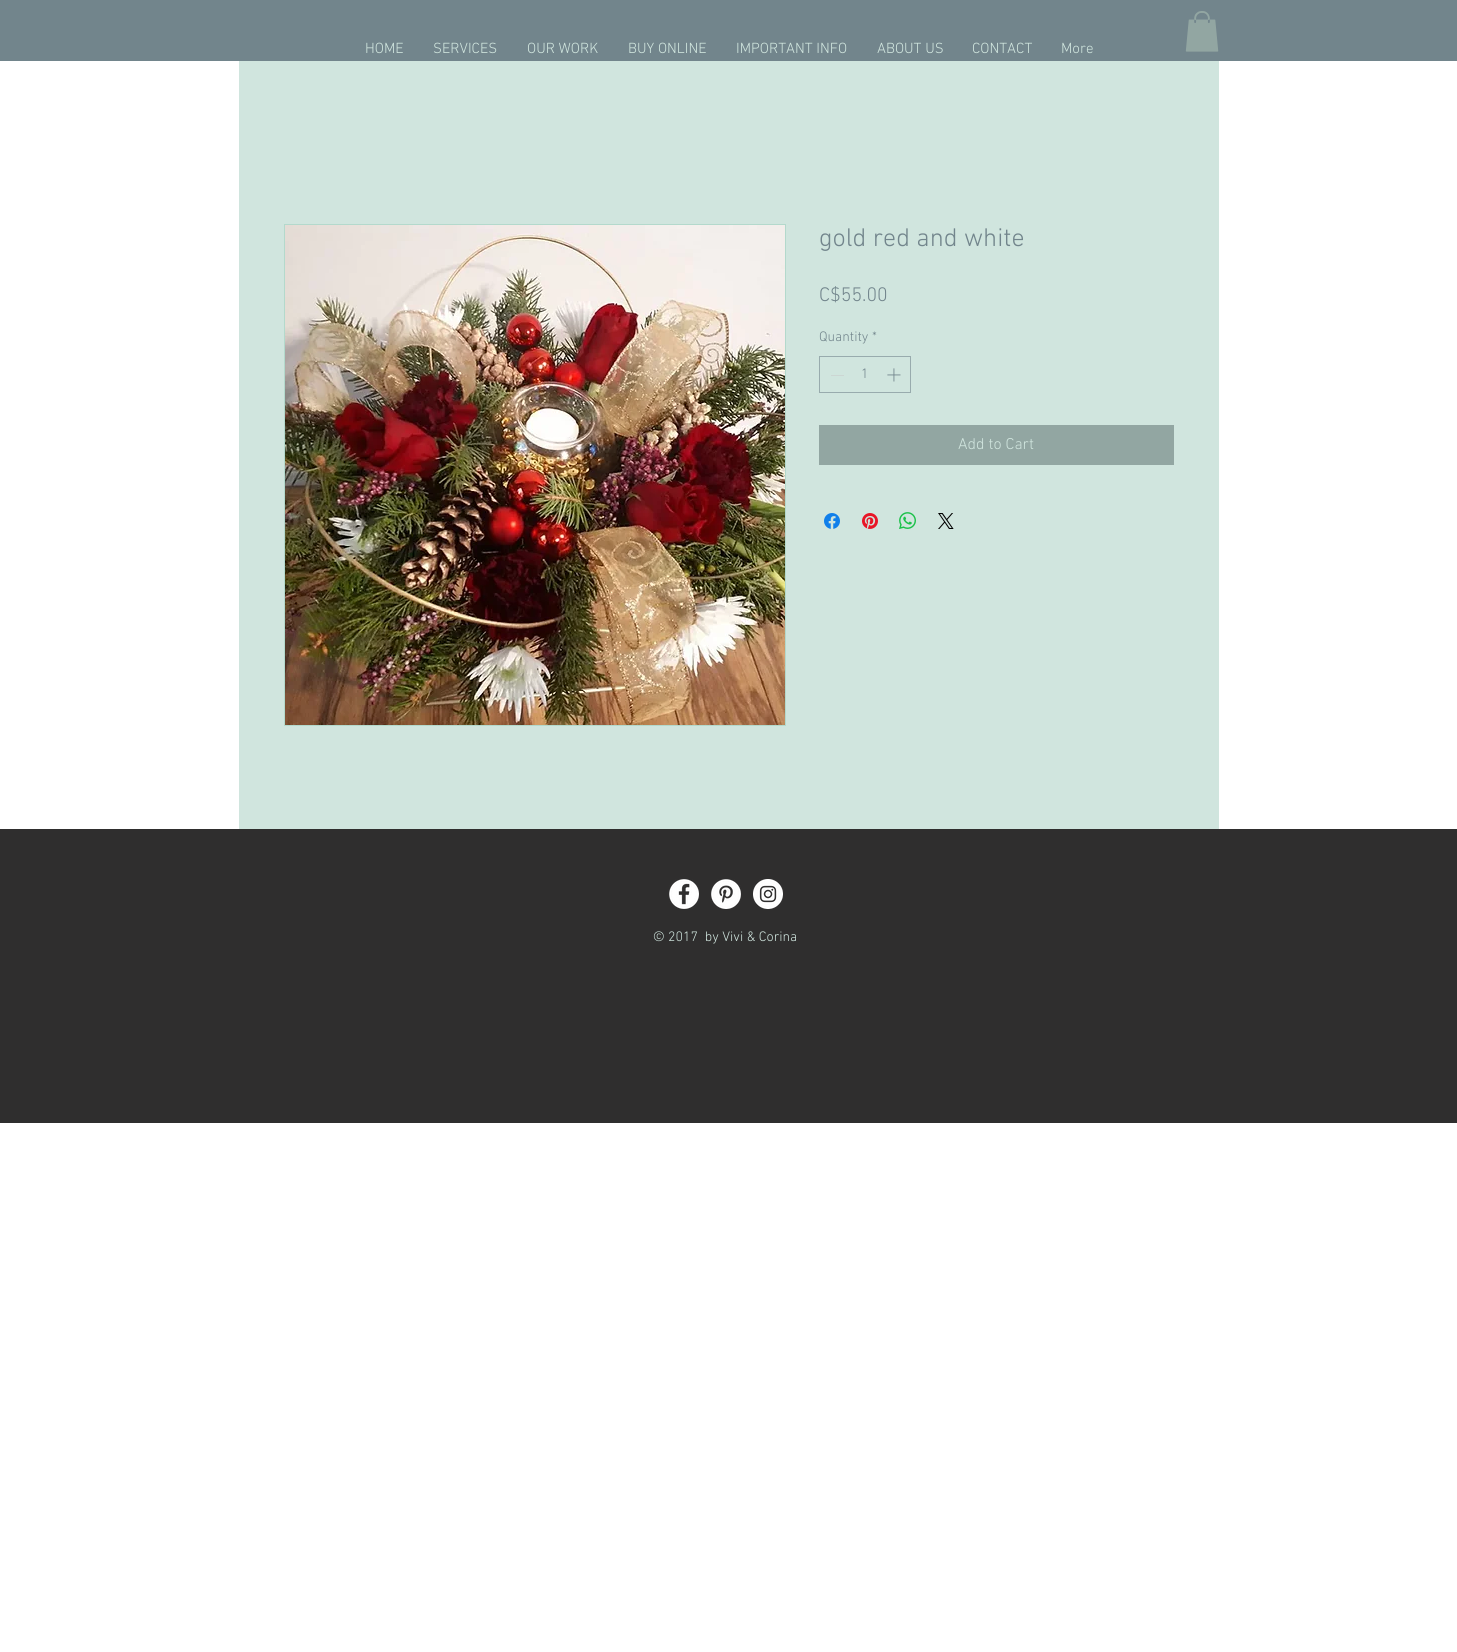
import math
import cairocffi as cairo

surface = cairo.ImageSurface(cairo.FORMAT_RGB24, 1457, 1652)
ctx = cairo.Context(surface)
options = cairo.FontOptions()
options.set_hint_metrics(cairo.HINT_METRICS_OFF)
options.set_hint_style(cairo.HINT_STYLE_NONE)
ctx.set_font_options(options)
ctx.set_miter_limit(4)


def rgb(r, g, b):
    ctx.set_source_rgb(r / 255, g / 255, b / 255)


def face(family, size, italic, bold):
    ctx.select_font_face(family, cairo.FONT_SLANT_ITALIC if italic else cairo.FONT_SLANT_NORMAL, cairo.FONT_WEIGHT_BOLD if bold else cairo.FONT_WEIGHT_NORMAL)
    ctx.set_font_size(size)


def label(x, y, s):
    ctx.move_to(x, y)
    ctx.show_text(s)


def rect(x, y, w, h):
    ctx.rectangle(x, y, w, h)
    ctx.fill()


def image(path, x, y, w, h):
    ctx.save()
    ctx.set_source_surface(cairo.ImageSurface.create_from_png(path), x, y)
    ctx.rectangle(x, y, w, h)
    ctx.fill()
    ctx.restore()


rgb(255, 255, 255)
ctx.paint()
rgb(114, 133, 140)
rect(0, 0, 1457, 61)
face('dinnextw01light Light', 15, 0, 0)
rgb(208, 229, 222)
label(365, 53, 'HOME')
label(433, 53, 'SERVICES')
label(527, 53, 'OUR WORK')
label(628, 53, 'BUY ONLINE')
label(736, 53, 'IMPORTANT INFO')
label(877, 53, 'ABOUT US')
label(972, 53, 'CONTACT')
label(1061, 53, 'More')
image('image0.png', 1185, 11, 34, 41)
rect(239, 61, 980, 768)
ctx.rectangle(284.5, 224.5, 501, 501)
rgb(179, 217, 204)
ctx.set_line_width(1)
ctx.stroke()
image('image1.png', 285, 225, 500, 500)
face('dinnextw01light Light', 26, 0, 0)
rgb(114, 133, 140)
label(819, 246, 'gold red and white')
face('dinnextw01light Light', 20, 0, 0)
label(819, 301, 'C$55.00')
face('dinnextw01light Light', 14, 0, 0)
label(819, 341, 'Quantity')
label(872, 341, '*')
ctx.rectangle(819.5, 356.5, 91, 36)
rgb(152, 171, 173)
ctx.stroke()
rgb(204, 214, 211)
rect(831, 375, 13, 1)
rgb(114, 133, 140)
label(861, 378, '1')
image('image2.png', 887, 368, 14, 14)
rgb(146, 166, 162)
rect(819, 425, 355, 40)
face('dinnextw01light Light', 16, 0, 0)
rgb(208, 229, 222)
label(958, 449, 'Add to Cart')
image('image3.png', 824, 513, 16, 16)
image('image4.png', 862, 513, 16, 16)
image('image5.png', 899, 512, 17, 17)
image('image6.png', 938, 513, 16, 16)
rgb(47, 46, 46)
rect(0, 829, 1457, 294)
image('image7.png', 669, 879, 30, 30)
image('image8.png', 711, 879, 30, 30)
image('image9.png', 753, 879, 30, 30)
face('dinnextw01light Light', 14, 0, 0)
rgb(208, 229, 222)
label(653, 941, '© 2017  by Vivi & Corina')
surface.write_to_png('render.png')
